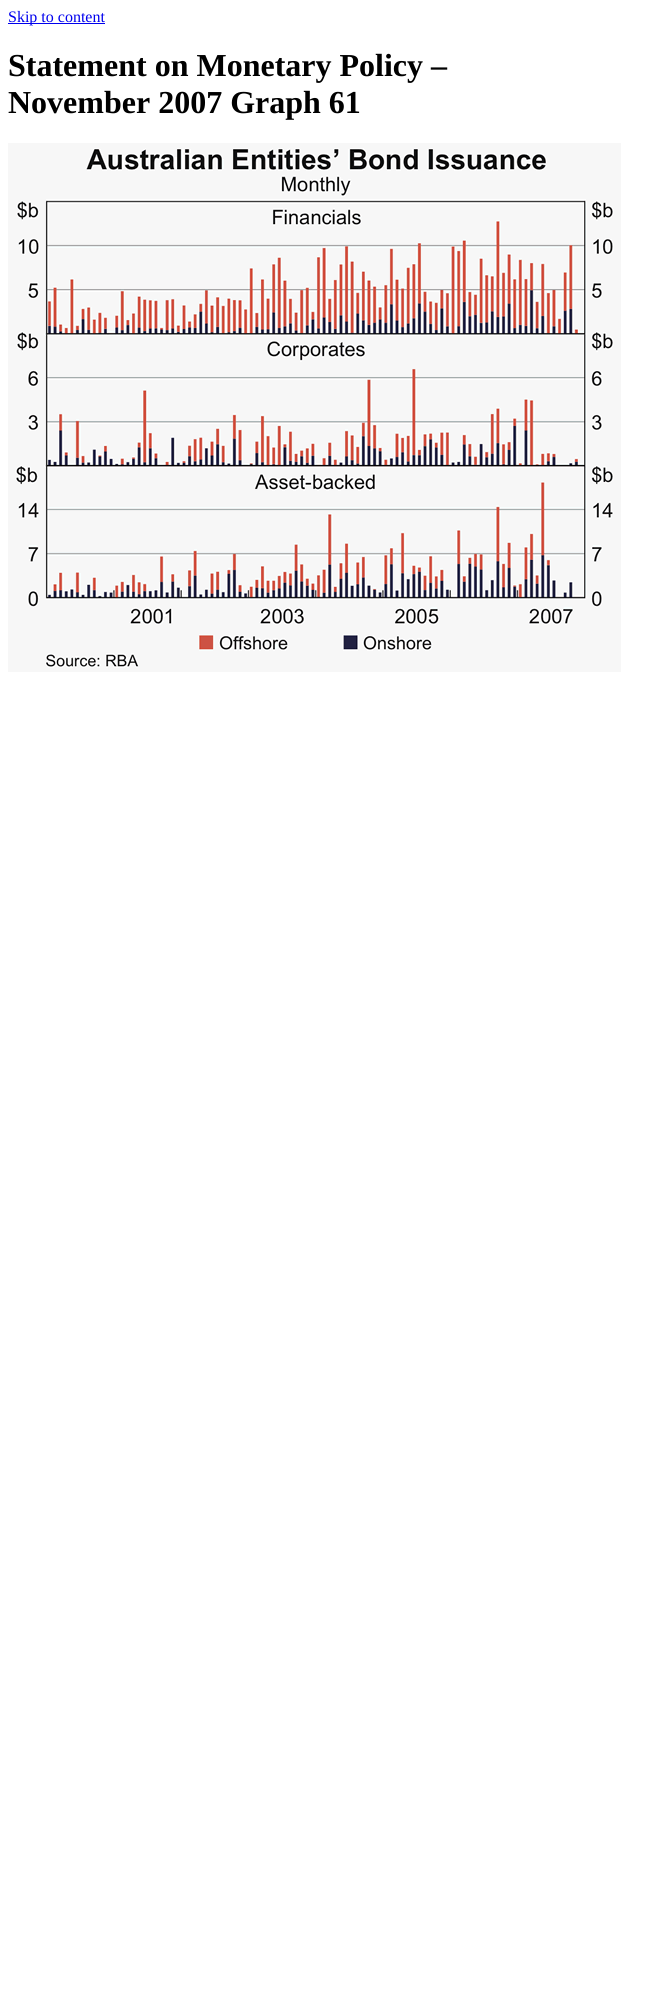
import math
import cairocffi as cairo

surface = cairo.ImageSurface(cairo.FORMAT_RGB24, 671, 1994)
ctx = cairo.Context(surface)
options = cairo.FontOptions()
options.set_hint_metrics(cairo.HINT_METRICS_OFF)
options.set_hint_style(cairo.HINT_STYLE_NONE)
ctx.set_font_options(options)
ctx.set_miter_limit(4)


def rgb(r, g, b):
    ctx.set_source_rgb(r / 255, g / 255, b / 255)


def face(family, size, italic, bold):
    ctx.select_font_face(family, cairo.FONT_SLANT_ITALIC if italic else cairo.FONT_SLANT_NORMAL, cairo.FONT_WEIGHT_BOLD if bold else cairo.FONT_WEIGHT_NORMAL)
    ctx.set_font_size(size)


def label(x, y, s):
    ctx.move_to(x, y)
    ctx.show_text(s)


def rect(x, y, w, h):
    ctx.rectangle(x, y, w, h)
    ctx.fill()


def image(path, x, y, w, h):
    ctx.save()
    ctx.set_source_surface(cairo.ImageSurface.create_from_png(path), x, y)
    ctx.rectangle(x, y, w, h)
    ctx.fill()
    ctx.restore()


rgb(255, 255, 255)
ctx.paint()
rgb(0, 0, 238)
rect(8, 23, 97, 1)
face('Liberation Serif', 16, 0, 0)
label(8, 22, 'Skip to content')
face('Liberation Serif', 32, 0, 1)
rgb(0, 0, 0)
label(8, 76, 'Statement on Monetary Policy –')
label(8, 113, 'November 2007 Graph 61')
image('image0.png', 8, 143, 613, 529)
surface.write_to_png('render.png')
